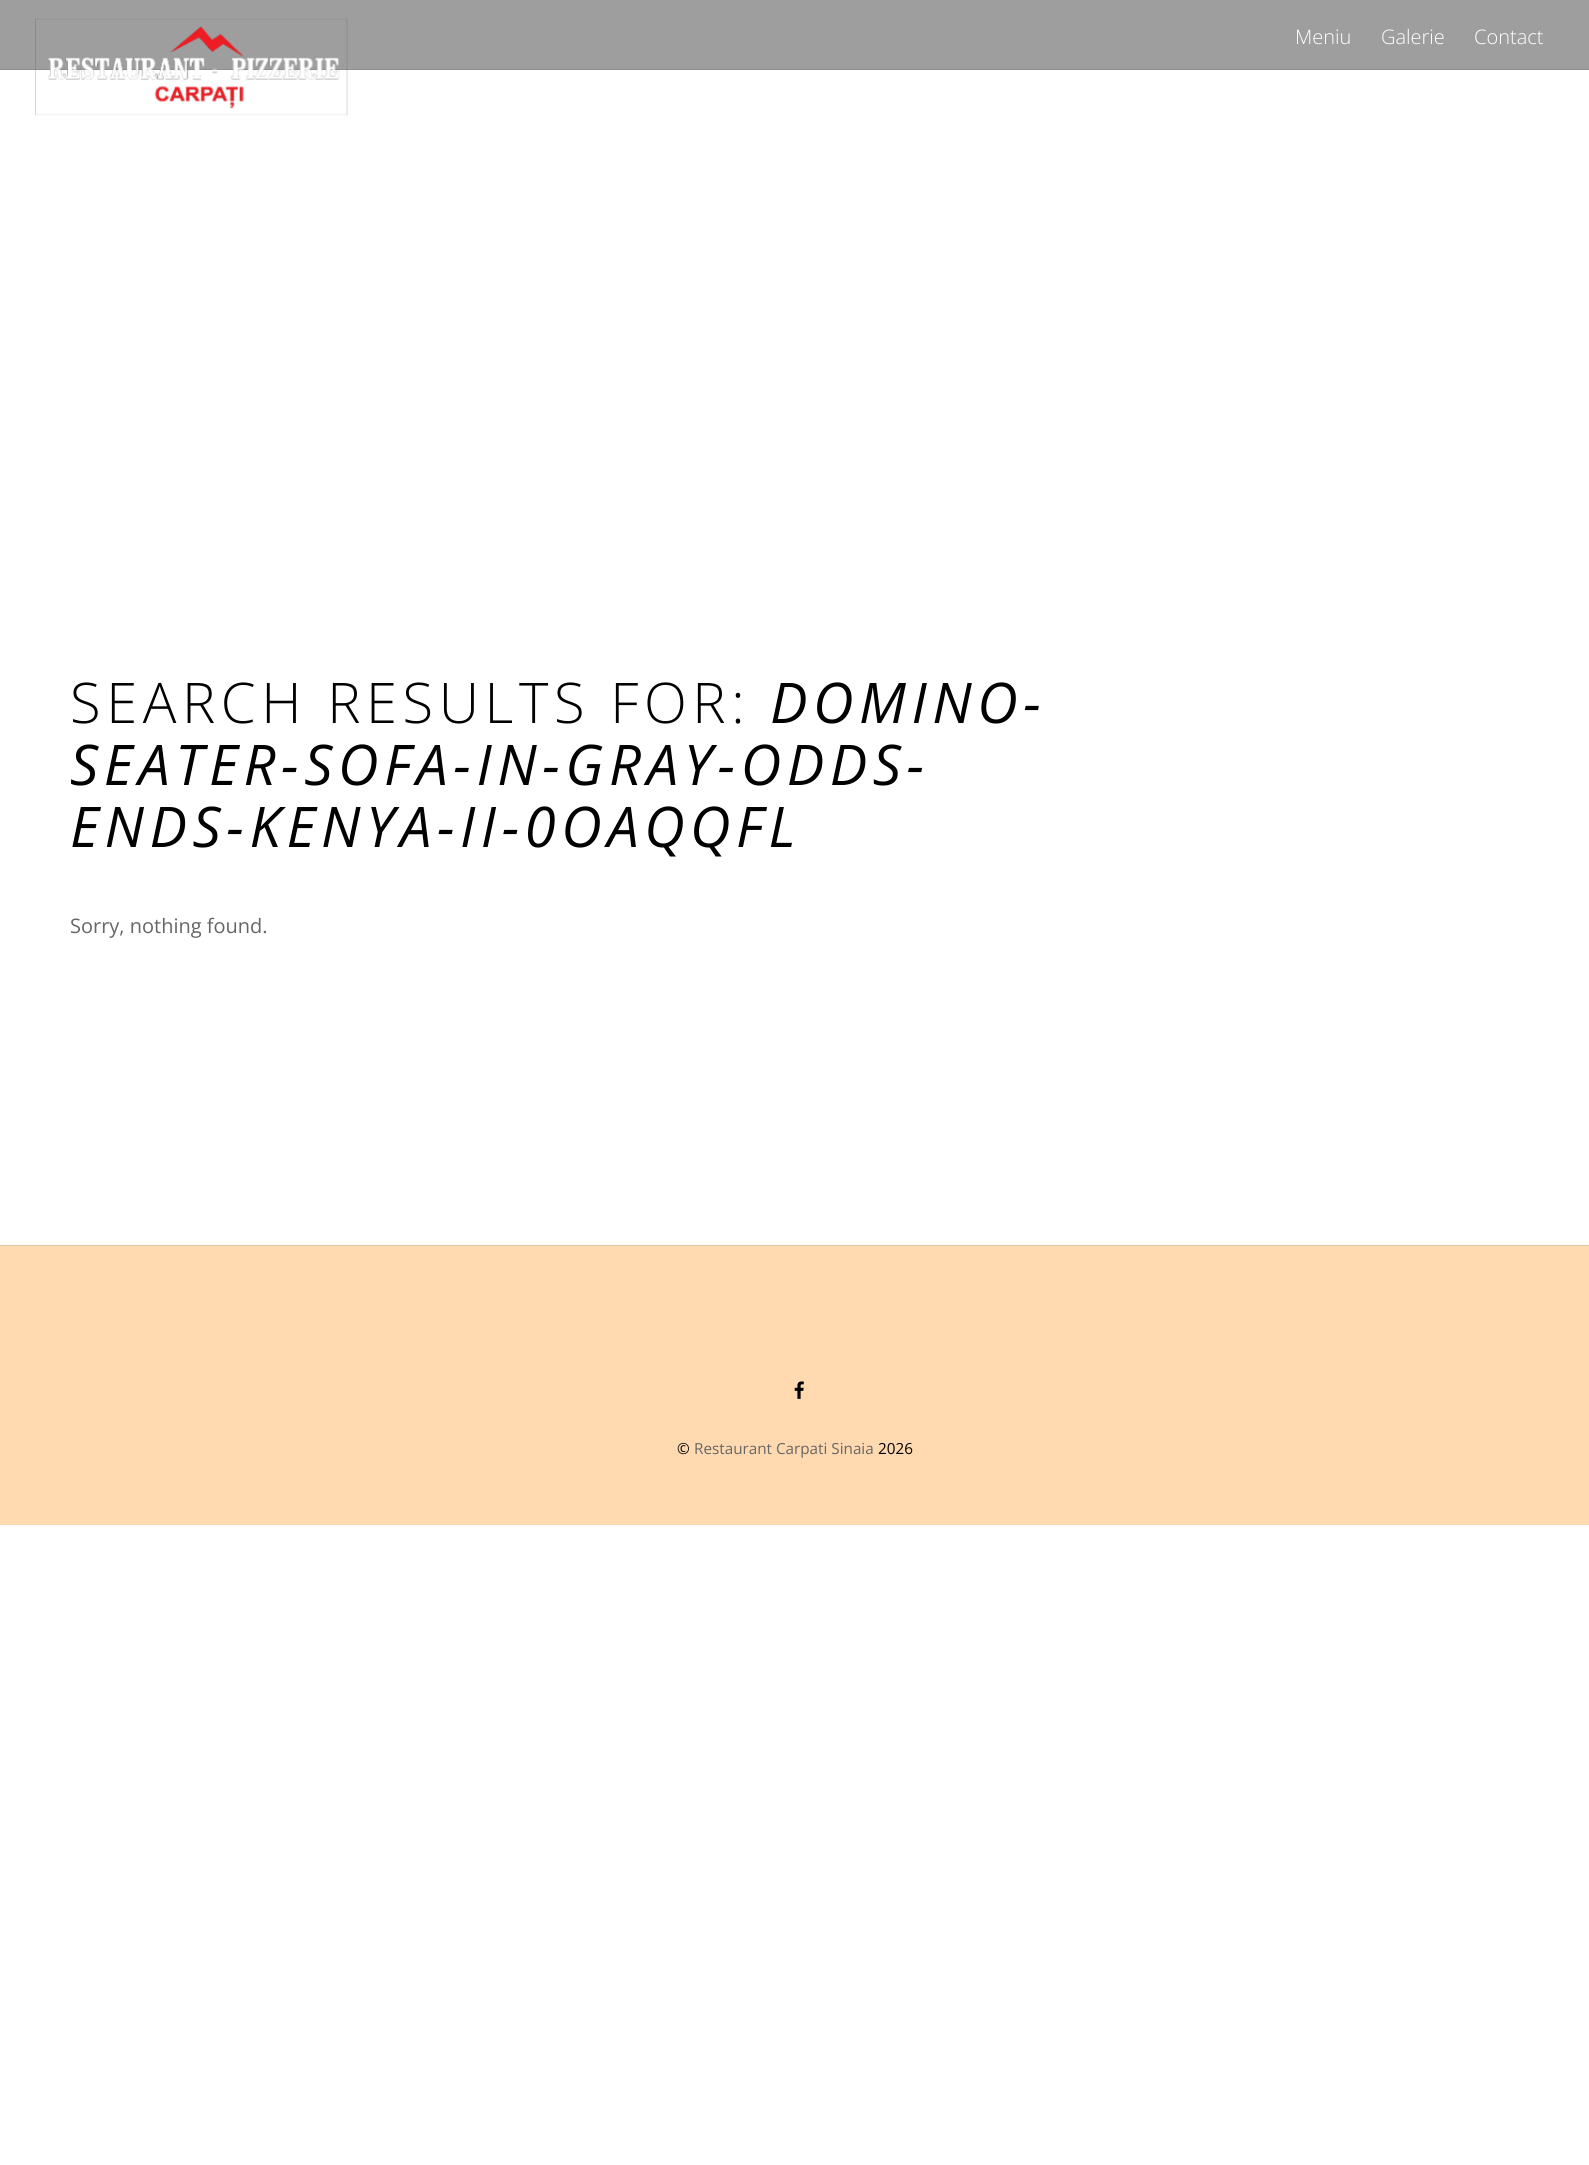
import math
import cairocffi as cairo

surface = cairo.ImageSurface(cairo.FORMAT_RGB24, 1589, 2165)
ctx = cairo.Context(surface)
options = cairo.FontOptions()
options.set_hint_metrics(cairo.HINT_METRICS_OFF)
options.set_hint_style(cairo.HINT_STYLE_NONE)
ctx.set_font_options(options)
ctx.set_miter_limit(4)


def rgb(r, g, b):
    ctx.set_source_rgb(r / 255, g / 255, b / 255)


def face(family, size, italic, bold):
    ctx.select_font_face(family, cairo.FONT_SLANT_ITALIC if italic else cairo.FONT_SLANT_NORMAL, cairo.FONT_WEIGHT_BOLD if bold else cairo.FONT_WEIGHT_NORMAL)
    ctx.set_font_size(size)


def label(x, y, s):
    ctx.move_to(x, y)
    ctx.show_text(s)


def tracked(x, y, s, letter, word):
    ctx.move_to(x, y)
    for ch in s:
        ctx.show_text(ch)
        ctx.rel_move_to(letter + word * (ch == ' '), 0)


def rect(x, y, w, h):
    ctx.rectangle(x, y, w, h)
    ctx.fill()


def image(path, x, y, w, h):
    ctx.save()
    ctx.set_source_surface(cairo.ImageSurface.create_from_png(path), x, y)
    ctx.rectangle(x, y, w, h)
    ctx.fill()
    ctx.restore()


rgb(255, 255, 255)
ctx.paint()
rgb(158, 158, 158)
rect(0, 0, 1589, 69)
rgb(142, 142, 142)
rect(0, 69, 1589, 1)
image('image0.png', 35, 18, 313, 98)
face('Open Sans Light', 20, 0, 0)
rgb(255, 255, 255)
label(1295, 44, 'Meniu')
label(1381, 44, 'Galerie')
label(1474, 44, 'Contact')
face('Open Sans Light', 56, 0, 0)
rgb(0, 0, 0)
tracked(70, 723, 'SEARCH RESULTS FOR:', 5.6, 0)
face('Open Sans', 56, 1, 0)
tracked(770, 723, 'DOMINO-', 5.6, 0)
tracked(70, 785, 'SEATER-SOFA-IN-GRAY-ODDS-', 5.6, 0)
tracked(70, 847, 'ENDS-KENYA-II-0OAQQFL', 5.6, 0)
face('Open Sans', 20, 0, 0)
rgb(102, 102, 102)
label(70, 933, 'Sorry, nothing found.')
rgb(255, 218, 176)
rect(0, 1246, 1589, 279)
rgb(230, 196, 158)
rect(0, 1245, 1589, 1)
image('image1.png', 794, 1381, 10, 18)
face('Open Sans', 15.25, 0, 0)
rgb(0, 0, 0)
label(677, 1454, '©')
rgb(102, 102, 102)
label(694, 1454, 'Restaurant Carpati Sinaia')
rgb(0, 0, 0)
label(878, 1454, '2026')
surface.write_to_png('render.png')
